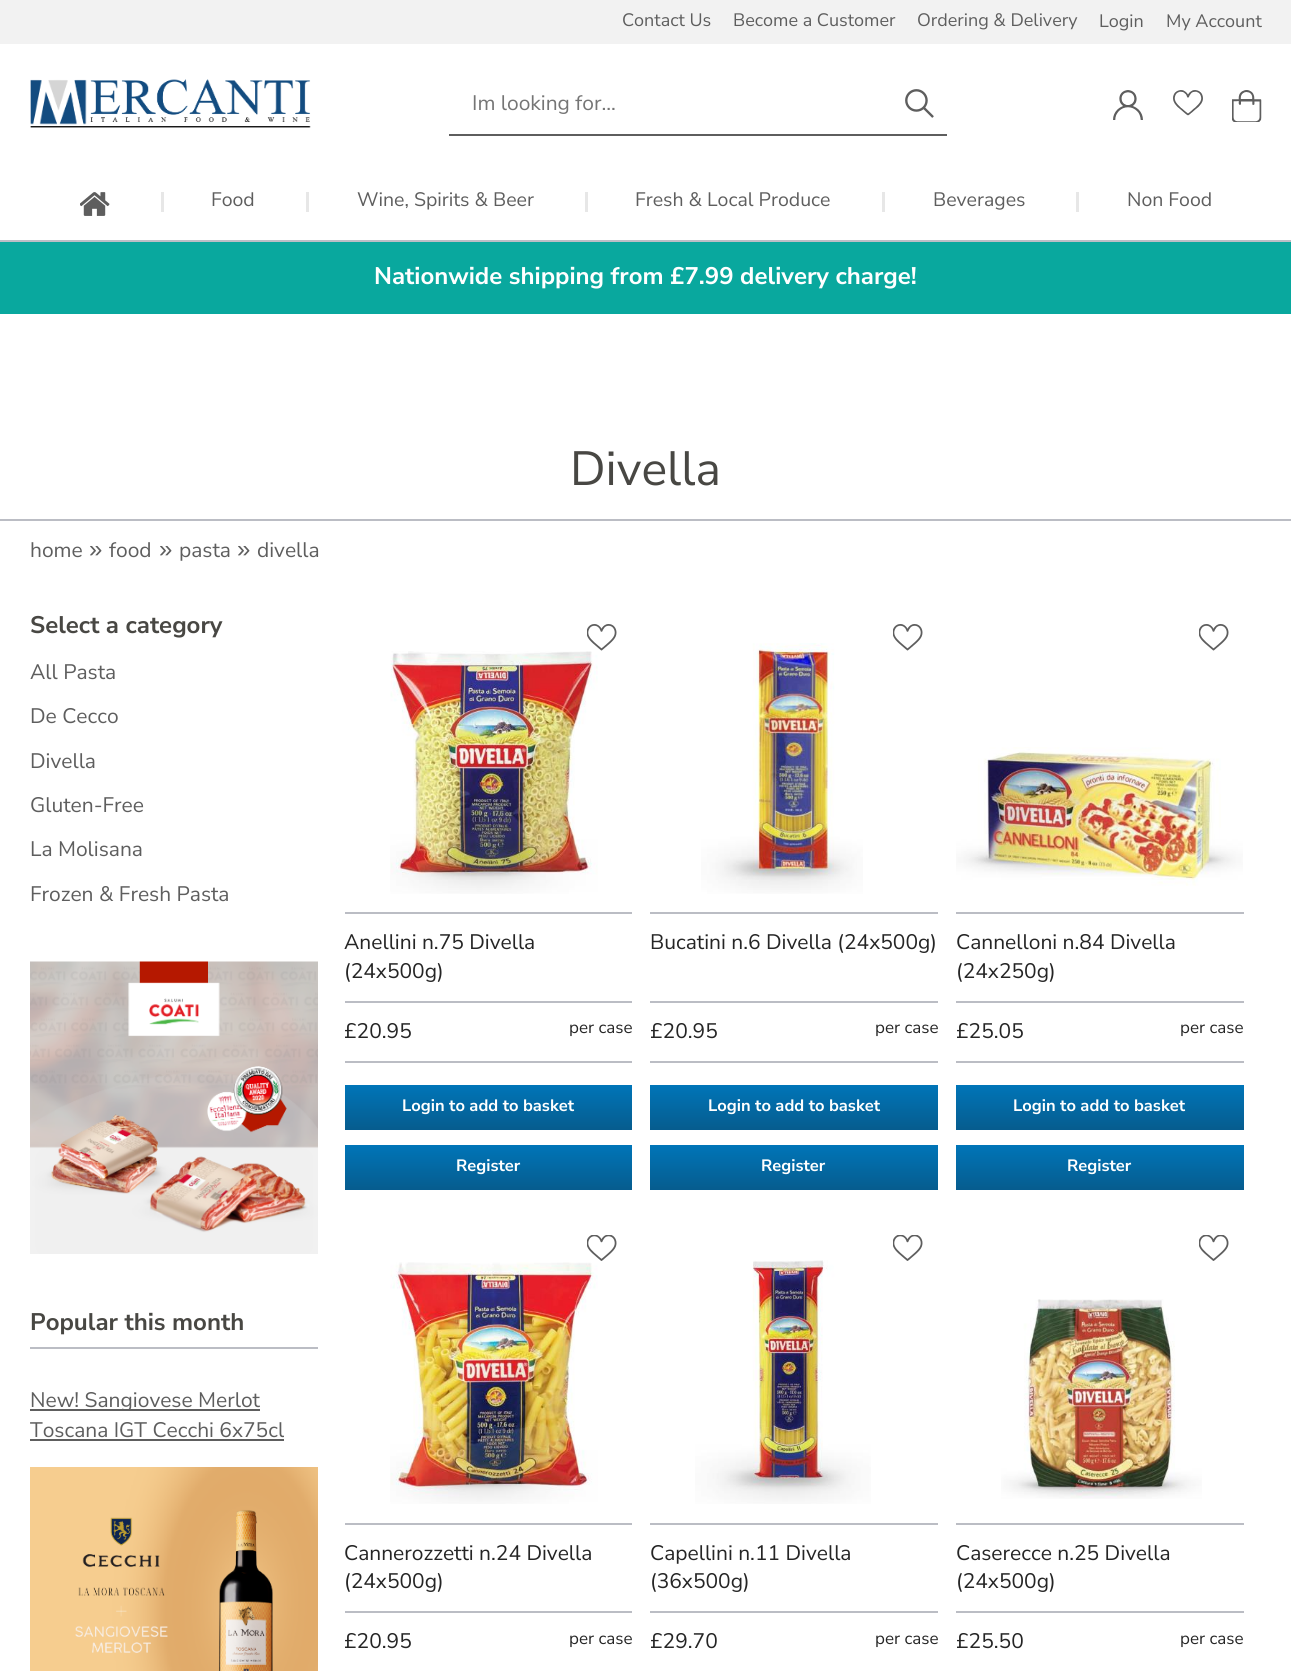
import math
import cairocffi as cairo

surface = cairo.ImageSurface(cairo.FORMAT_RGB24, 1291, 1671)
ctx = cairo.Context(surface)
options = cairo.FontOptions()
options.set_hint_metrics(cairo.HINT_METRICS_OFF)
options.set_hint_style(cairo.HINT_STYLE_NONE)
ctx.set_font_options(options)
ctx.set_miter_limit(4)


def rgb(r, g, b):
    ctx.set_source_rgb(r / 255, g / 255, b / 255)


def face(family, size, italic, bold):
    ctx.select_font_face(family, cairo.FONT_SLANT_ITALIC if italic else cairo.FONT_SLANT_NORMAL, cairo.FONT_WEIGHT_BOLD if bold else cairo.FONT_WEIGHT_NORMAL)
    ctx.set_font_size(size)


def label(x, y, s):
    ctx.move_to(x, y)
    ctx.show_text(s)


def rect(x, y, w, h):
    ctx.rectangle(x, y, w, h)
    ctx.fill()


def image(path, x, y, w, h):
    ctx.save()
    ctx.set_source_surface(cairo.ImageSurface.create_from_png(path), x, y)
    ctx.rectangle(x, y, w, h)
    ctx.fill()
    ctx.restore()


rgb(255, 255, 255)
ctx.paint()
rgb(188, 190, 198)
rect(0, 240, 1291, 2)
rgb(242, 242, 242)
rect(0, 0, 1291, 44)
face('Nunito Sans', 18, 0, 0)
rgb(94, 94, 94)
label(622, 26, 'Contact Us')
label(733, 26, 'Become a Customer')
label(917, 26, 'Ordering & Delivery')
label(1099, 27, 'Login')
label(1166, 27, 'My Account')
image('image0.png', 30, 79, 281, 49)
rect(449, 134, 498, 2)
face('Nunito Sans', 21, 0, 0)
rgb(117, 117, 117)
label(472, 110, 'Im looking for...')
image('image1.png', 905, 89, 29, 29)
image('image2.png', 1113, 90, 30, 30)
image('image3.png', 1173, 90, 30, 26)
image('image4.png', 1232, 90, 30, 32)
image('image5.png', 80, 192, 30, 24)
rgb(231, 231, 231)
rect(161, 192, 3, 20)
face('Nunito Sans', 19.5, 0, 0)
rgb(94, 94, 94)
label(211, 206, 'Food')
rgb(231, 231, 231)
rect(306, 192, 3, 20)
rgb(94, 94, 94)
label(357, 206, 'Wine, Spirits & Beer')
rgb(231, 231, 231)
rect(585, 192, 3, 20)
rgb(94, 94, 94)
label(635, 206, 'Fresh & Local Produce')
rgb(231, 231, 231)
rect(882, 192, 3, 20)
rgb(94, 94, 94)
label(933, 206, 'Beverages')
rgb(231, 231, 231)
rect(1076, 192, 3, 20)
rgb(94, 94, 94)
label(1127, 206, 'Non Food')
rgb(9, 168, 158)
rect(0, 242, 1291, 72)
face('Nunito Sans', 24, 0, 1)
rgb(255, 255, 255)
label(374, 284, 'Nationwide shipping from £7.99 delivery charge!')
rgb(187, 189, 196)
rect(0, 519, 1291, 2)
face('Nunito Sans', 48, 0, 0)
rgb(72, 71, 67)
label(570, 485, 'Divella')
face('Nunito Sans', 21, 0, 0)
rgb(94, 94, 94)
label(30, 557, 'home')
face('Liberation Sans', 24, 0, 0)
label(89, 557, '»')
face('Nunito Sans', 21, 0, 0)
label(109, 557, 'food')
face('Liberation Sans', 24, 0, 0)
label(159, 557, '»')
face('Nunito Sans', 21, 0, 0)
label(179, 557, 'pasta')
face('Liberation Sans', 24, 0, 0)
label(237, 557, '»')
face('Nunito Sans', 21, 0, 0)
label(257, 557, 'divella')
face('Nunito Sans', 24, 0, 1)
rgb(72, 71, 67)
label(30, 633, 'Select a category')
face('Nunito Sans', 21, 0, 0)
rgb(94, 94, 94)
label(30, 679, 'All Pasta')
label(30, 723, 'De Cecco')
label(30, 768, 'Divella')
label(30, 812, 'Gluten-Free')
label(30, 856, 'La Molisana')
label(30, 901, 'Frozen & Fresh Pasta')
image('image6.png', 30, 961, 288, 293)
rgb(187, 189, 196)
rect(30, 1347, 288, 2)
face('Nunito Sans', 24, 0, 1)
rgb(72, 71, 67)
label(30, 1330, 'Popular this month')
rgb(94, 94, 94)
rect(30, 1409, 230, 2)
face('Nunito Sans', 21, 0, 0)
label(30, 1407, 'New! Sangiovese Merlot')
label(30, 1437, 'Toscana IGT Cecchi 6x75cl')
rect(30, 1439, 254, 2)
image('image7.png', 30, 1467, 288, 204)
image('image8.png', 587, 624, 30, 27)
image('image9.png', 390, 651, 208, 243)
rgb(187, 189, 196)
rect(345, 912, 287, 2)
rect(345, 1001, 287, 2)
rgb(37, 37, 37)
label(344, 949, 'Anellini n.75 Divella')
label(344, 978, '(24x500g)')
rgb(187, 189, 196)
rect(345, 1061, 287, 2)
rgb(37, 37, 37)
label(344, 1038, '£20.95')
face('Nunito Sans', 17, 0, 0)
label(569, 1033, 'per case')
gradient = cairo.LinearGradient(488, 1085, 488, 1130)
gradient.add_color_stop_rgba(0, 0, 0.459, 0.722, 1)
gradient.add_color_stop_rgba(1, 0.024, 0.361, 0.557, 1)
ctx.set_source(gradient)
rect(345, 1085, 287, 45)
face('Nunito Sans', 16.5, 0, 1)
rgb(255, 255, 255)
label(402, 1111, 'Login to add to basket')
gradient = cairo.LinearGradient(488, 1145, 488, 1190)
gradient.add_color_stop_rgba(0, 0, 0.459, 0.722, 1)
gradient.add_color_stop_rgba(1, 0.024, 0.361, 0.557, 1)
ctx.set_source(gradient)
rect(345, 1145, 287, 45)
rgb(255, 255, 255)
label(456, 1171, 'Register')
image('image8.png', 893, 624, 30, 27)
image('image10.png', 701, 643, 162, 251)
rgb(187, 189, 196)
rect(650, 912, 288, 2)
rect(650, 1001, 288, 2)
face('Nunito Sans', 21, 0, 0)
rgb(37, 37, 37)
label(650, 949, 'Bucatini n.6 Divella (24x500g)')
rgb(187, 189, 196)
rect(650, 1061, 288, 2)
rgb(37, 37, 37)
label(650, 1038, '£20.95')
face('Nunito Sans', 17, 0, 0)
label(875, 1033, 'per case')
gradient = cairo.LinearGradient(794, 1085, 794, 1130)
gradient.add_color_stop_rgba(0, 0, 0.459, 0.722, 1)
gradient.add_color_stop_rgba(1, 0.024, 0.361, 0.557, 1)
ctx.set_source(gradient)
rect(650, 1085, 288, 45)
face('Nunito Sans', 16.5, 0, 1)
rgb(255, 255, 255)
label(708, 1111, 'Login to add to basket')
gradient = cairo.LinearGradient(794, 1145, 794, 1190)
gradient.add_color_stop_rgba(0, 0, 0.459, 0.722, 1)
gradient.add_color_stop_rgba(1, 0.024, 0.361, 0.557, 1)
ctx.set_source(gradient)
rect(650, 1145, 288, 45)
rgb(255, 255, 255)
label(761, 1171, 'Register')
image('image8.png', 1199, 624, 30, 27)
image('image11.png', 956, 747, 287, 139)
rgb(187, 189, 196)
rect(956, 912, 288, 2)
rect(956, 1001, 288, 2)
face('Nunito Sans', 21, 0, 0)
rgb(37, 37, 37)
label(956, 949, 'Cannelloni n.84 Divella')
label(956, 978, '(24x250g)')
rgb(187, 189, 196)
rect(956, 1061, 288, 2)
rgb(37, 37, 37)
label(956, 1038, '£25.05')
face('Nunito Sans', 17, 0, 0)
label(1180, 1033, 'per case')
gradient = cairo.LinearGradient(1100, 1085, 1100, 1130)
gradient.add_color_stop_rgba(0, 0, 0.459, 0.722, 1)
gradient.add_color_stop_rgba(1, 0.024, 0.361, 0.557, 1)
ctx.set_source(gradient)
rect(956, 1085, 288, 45)
face('Nunito Sans', 16.5, 0, 1)
rgb(255, 255, 255)
label(1013, 1111, 'Login to add to basket')
gradient = cairo.LinearGradient(1100, 1145, 1100, 1190)
gradient.add_color_stop_rgba(0, 0, 0.459, 0.722, 1)
gradient.add_color_stop_rgba(1, 0.024, 0.361, 0.557, 1)
ctx.set_source(gradient)
rect(956, 1145, 288, 45)
rgb(255, 255, 255)
label(1067, 1171, 'Register')
image('image12.png', 587, 1235, 30, 26)
image('image13.png', 390, 1262, 208, 242)
rgb(187, 189, 196)
rect(345, 1523, 287, 2)
rect(345, 1611, 287, 2)
face('Nunito Sans', 21, 0, 0)
rgb(37, 37, 37)
label(344, 1560, 'Cannerozzetti n.24 Divella')
label(344, 1588, '(24x500g)')
label(344, 1648, '£20.95')
face('Nunito Sans', 17, 0, 0)
label(569, 1644, 'per case')
image('image12.png', 893, 1235, 30, 26)
image('image14.png', 695, 1260, 176, 244)
rgb(187, 189, 196)
rect(650, 1523, 288, 2)
rect(650, 1611, 288, 2)
face('Nunito Sans', 21, 0, 0)
rgb(37, 37, 37)
label(650, 1560, 'Capellini n.11 Divella')
label(650, 1588, '(36x500g)')
label(650, 1648, '£29.70')
face('Nunito Sans', 17, 0, 0)
label(875, 1644, 'per case')
image('image12.png', 1199, 1235, 30, 26)
image('image15.png', 1001, 1299, 201, 200)
rgb(187, 189, 196)
rect(956, 1523, 288, 2)
rect(956, 1611, 288, 2)
face('Nunito Sans', 21, 0, 0)
rgb(37, 37, 37)
label(956, 1560, 'Caserecce n.25 Divella')
label(956, 1588, '(24x500g)')
label(956, 1648, '£25.50')
face('Nunito Sans', 17, 0, 0)
label(1180, 1644, 'per case')
surface.write_to_png('render.png')
